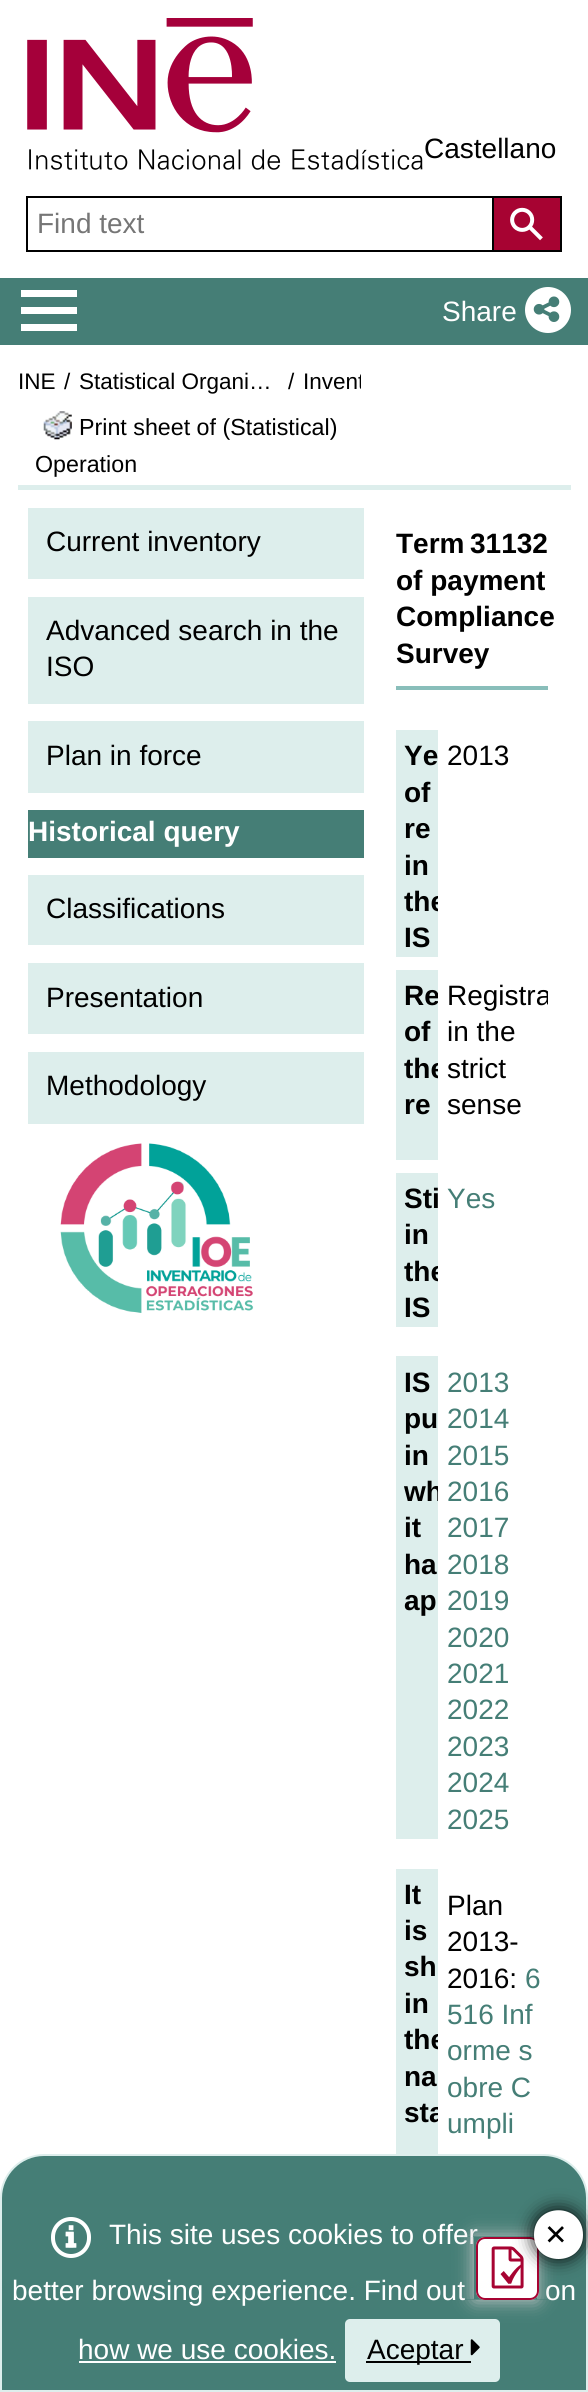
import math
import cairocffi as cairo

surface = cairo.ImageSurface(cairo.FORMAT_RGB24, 588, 2392)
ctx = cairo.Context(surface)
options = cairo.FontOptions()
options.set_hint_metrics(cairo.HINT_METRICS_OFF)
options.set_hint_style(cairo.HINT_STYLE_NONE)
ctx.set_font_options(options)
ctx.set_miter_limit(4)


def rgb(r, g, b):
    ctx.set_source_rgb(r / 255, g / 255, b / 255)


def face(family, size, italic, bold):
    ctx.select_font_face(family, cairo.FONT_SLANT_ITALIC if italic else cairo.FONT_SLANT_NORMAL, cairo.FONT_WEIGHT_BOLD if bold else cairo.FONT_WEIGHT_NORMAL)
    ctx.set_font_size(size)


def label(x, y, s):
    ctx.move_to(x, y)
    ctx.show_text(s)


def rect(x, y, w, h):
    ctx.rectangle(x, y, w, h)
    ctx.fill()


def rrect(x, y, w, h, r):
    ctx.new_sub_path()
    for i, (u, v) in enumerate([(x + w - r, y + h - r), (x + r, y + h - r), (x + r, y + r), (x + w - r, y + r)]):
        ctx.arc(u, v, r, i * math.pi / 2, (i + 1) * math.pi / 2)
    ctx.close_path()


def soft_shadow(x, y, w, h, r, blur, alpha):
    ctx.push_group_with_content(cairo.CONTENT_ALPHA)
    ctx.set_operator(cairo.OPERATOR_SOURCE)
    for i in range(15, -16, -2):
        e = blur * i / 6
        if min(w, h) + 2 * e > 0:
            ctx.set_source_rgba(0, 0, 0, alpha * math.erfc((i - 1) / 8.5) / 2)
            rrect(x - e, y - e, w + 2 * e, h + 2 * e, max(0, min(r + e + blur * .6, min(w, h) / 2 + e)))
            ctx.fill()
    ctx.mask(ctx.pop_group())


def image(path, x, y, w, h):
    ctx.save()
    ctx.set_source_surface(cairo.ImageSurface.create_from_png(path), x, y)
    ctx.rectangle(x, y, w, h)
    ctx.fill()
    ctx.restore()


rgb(255, 255, 255)
ctx.paint()
image('image0.png', 27, 18, 396, 152)
face('Liberation Sans', 28, 0, 0)
rgb(0, 0, 0)
label(424, 158, 'Castellano')
ctx.rectangle(27, 197, 473, 54)
ctx.stroke()
rgb(118, 118, 118)
label(37, 233, 'Find text')
rgb(167, 3, 50)
ctx.rectangle(493, 197, 68, 54)
ctx.fill_preserve()
rgb(0, 0, 0)
ctx.stroke()
image('image1.png', 510, 207, 33, 34)
rgb(69, 126, 118)
rect(0, 278, 588, 67)
rgb(255, 255, 255)
ctx.new_path()
ctx.move_to(77, 296)
ctx.line_to(77, 290)
ctx.line_to(21, 290)
ctx.line_to(21, 297)
ctx.line_to(77, 297)
ctx.close_path()
ctx.move_to(77, 313)
ctx.line_to(77, 307)
ctx.line_to(21, 307)
ctx.line_to(21, 314)
ctx.line_to(77, 314)
ctx.close_path()
ctx.move_to(77, 330)
ctx.line_to(77, 324)
ctx.line_to(21, 324)
ctx.line_to(21, 331)
ctx.line_to(77, 331)
ctx.close_path()
ctx.fill()
label(442, 321, 'Share')
ctx.new_path()
ctx.arc(548, 310, 23, 0, 2 * math.pi)
ctx.fill()
image('image2.png', 533, 296, 27, 26)
rgb(221, 238, 236)
rect(18, 485, 553, 5)
face('Liberation Sans', 22.5, 0, 0)
rgb(0, 0, 0)
label(18, 389, 'INE')
label(64, 389, '/')
label(79, 389, 'Statistical Organi…')
label(288, 389, '/')
ctx.save()
ctx.rectangle(278, 368, 83, 29)
ctx.clip()
label(303, 389, 'Invent')
ctx.restore()
image('image3.png', 43, 411, 29, 29)
face('Liberation Sans', 23.25, 0, 0)
label(79, 435, 'Print sheet of (Statistical)')
label(35, 472, 'Operation')
rgb(221, 238, 236)
rect(28, 508, 336, 71)
face('Liberation Sans', 28, 0, 0)
rgb(0, 0, 0)
label(46, 551, 'Current inventory')
rgb(221, 238, 236)
rect(28, 597, 336, 107)
rgb(0, 0, 0)
label(46, 640, 'Advanced search in the')
label(46, 676, 'ISO')
rgb(221, 238, 236)
rect(28, 721, 336, 72)
rgb(0, 0, 0)
label(46, 765, 'Plan in force')
rgb(69, 126, 118)
rect(28, 810, 336, 48)
face('Liberation Sans', 28, 0, 1)
rgb(255, 255, 255)
label(28, 841, 'Historical query')
rgb(221, 238, 236)
rect(28, 875, 336, 70)
face('Liberation Sans', 28, 0, 0)
rgb(0, 0, 0)
label(46, 918, 'Classifications')
rgb(221, 238, 236)
rect(28, 963, 336, 71)
rgb(0, 0, 0)
label(46, 1007, 'Presentation')
rgb(221, 238, 236)
rect(28, 1052, 336, 72)
rgb(0, 0, 0)
label(46, 1095, 'Methodology')
image('image4.png', 60, 1143, 194, 170)
face('Liberation Sans', 28, 0, 1)
label(396, 553, 'Term')
label(470, 553, '31132')
label(396, 590, 'of payment')
label(396, 626, 'Compliance')
label(396, 663, 'Survey')
rgb(137, 190, 186)
rect(396, 686, 152, 4)
rgb(221, 238, 236)
rect(396, 730, 42, 227)
rgb(0, 0, 0)
label(404, 765, 'Ye')
label(404, 802, 'of')
label(404, 838, 're')
label(404, 875, 'in')
label(404, 911, 'the')
label(404, 947, 'IS')
rgb(255, 255, 255)
rect(438, 895, 8, 17)
face('Liberation Sans', 28, 0, 0)
rgb(0, 0, 0)
label(447, 765, '2013')
rgb(221, 238, 236)
rect(396, 970, 42, 190)
face('Liberation Sans', 28, 0, 1)
rgb(0, 0, 0)
label(404, 1005, 'Re')
label(404, 1041, 'of')
label(404, 1078, 'the')
label(404, 1114, 're')
rgb(255, 255, 255)
rect(438, 993, 8, 86)
ctx.save()
ctx.rectangle(396, 961, 152, 199)
ctx.clip()
face('Liberation Sans', 28, 0, 0)
rgb(0, 0, 0)
label(447, 1005, 'Registra')
ctx.restore()
face('Liberation Sans', 28, 0, 0)
rgb(0, 0, 0)
label(447, 1041, 'in the')
label(447, 1078, 'strict')
label(447, 1114, 'sense')
rgb(221, 238, 236)
rect(396, 1173, 42, 154)
face('Liberation Sans', 28, 0, 1)
rgb(0, 0, 0)
label(404, 1208, 'Sti')
label(404, 1244, 'in')
label(404, 1281, 'the')
label(404, 1317, 'IS')
rgb(255, 255, 255)
rect(438, 1187, 8, 95)
face('Liberation Sans', 28, 0, 0)
rgb(69, 126, 118)
label(447, 1208, 'Yes')
rgb(221, 238, 236)
rect(396, 1356, 42, 483)
face('Liberation Sans', 28, 0, 1)
rgb(0, 0, 0)
label(404, 1392, 'IS')
label(404, 1428, 'pu')
label(404, 1465, 'in')
label(404, 1501, 'wh')
label(404, 1537, 'it')
label(404, 1574, 'ha')
label(404, 1610, 'ap')
rgb(255, 255, 255)
rect(438, 1486, 4, 15)
face('Liberation Sans', 28, 0, 0)
rgb(69, 126, 118)
label(447, 1392, '2013')
label(447, 1428, '2014')
label(447, 1465, '2015')
label(447, 1501, '2016')
label(447, 1537, '2017')
label(447, 1574, '2018')
label(447, 1610, '2019')
label(447, 1647, '2020')
label(447, 1683, '2021')
label(447, 1719, '2022')
label(447, 1756, '2023')
label(447, 1792, '2024')
label(447, 1829, '2025')
rgb(221, 238, 236)
rect(396, 1869, 42, 285)
face('Liberation Sans', 28, 0, 1)
rgb(0, 0, 0)
label(404, 1904, 'It')
label(404, 1940, 'is')
label(404, 1976, 'sh')
label(404, 2013, 'in')
label(404, 2049, 'the')
label(404, 2086, 'na')
label(404, 2122, 'sta')
rgb(255, 255, 255)
rect(438, 2033, 8, 90)
face('Liberation Sans', 28, 0, 0)
rgb(0, 0, 0)
label(447, 1915, 'Plan')
label(447, 1951, '2013-')
label(447, 1988, '2016:')
rgb(69, 126, 118)
label(525, 1988, '6')
label(447, 2024, '516 Inf')
label(447, 2060, 'orme s')
label(447, 2097, 'obre C')
label(447, 2133, 'umpli')
ctx.new_path()
ctx.move_to(44, 2155)
ctx.line_to(544, 2155)
ctx.curve_to(567.5, 2155, 587, 2174.5, 587, 2198)
ctx.line_to(587, 2391)
ctx.line_to(1, 2391)
ctx.line_to(1, 2198)
ctx.curve_to(1, 2174.5, 20.5, 2155, 44, 2155)
ctx.close_path()
ctx.fill_preserve()
rgb(221, 238, 236)
ctx.stroke()
rrect(53, 2219, 36, 37, 18)
rgb(255, 255, 255)
ctx.set_line_width(4)
ctx.stroke()
image('image5.png', 65, 2225, 12, 23)
label(109, 2244, 'This site uses cookies to offer')
label(12, 2300, 'better browsing experience. Find out')
label(545, 2300, 'on')
label(78, 2359, 'how we use cookies.')
rect(79, 2361, 257, 2)
rgb(221, 238, 236)
rrect(344, 2318, 157, 65, 6)
ctx.fill_preserve()
rgb(69, 126, 118)
ctx.set_line_width(2)
ctx.stroke()
rgb(0, 0, 0)
rect(366, 2361, 105, 2)
label(367, 2359, 'Aceptar')
image('image6.png', 470, 2339, 10, 17)
ctx.save()
ctx.set_fill_rule(cairo.FILL_RULE_EVEN_ODD)
ctx.new_path()
ctx.move_to(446, 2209)
ctx.line_to(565, 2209)
ctx.line_to(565, 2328)
ctx.line_to(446, 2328)
ctx.close_path()
ctx.move_to(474, 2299.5)
ctx.line_to(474, 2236.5)
ctx.line_to(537, 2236.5)
ctx.line_to(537, 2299.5)
ctx.close_path()
ctx.clip()
rgb(204, 204, 204)
soft_shadow(474, 2237, 63, 63, 0, 9, 1)
ctx.restore()
rgb(255, 255, 255)
rrect(476, 2237, 63, 63, 9)
ctx.fill()
image('image7.png', 500, 2264, 21, 20)
rrect(477, 2238, 61, 61, 8)
rgb(167, 3, 50)
ctx.stroke()
image('image8.png', 491, 2246, 33, 43)
rgb(0, 0, 0)
soft_shadow(534, 2210, 49, 49, 24.5, 9, 1)
rgb(255, 255, 255)
ctx.new_path()
ctx.move_to(534, 2235)
ctx.curve_to(534, 2202, 583, 2202, 583, 2235)
ctx.curve_to(583, 2267, 534, 2267, 534, 2235)
ctx.close_path()
ctx.fill()
face('DejaVu Sans', 28, 0, 0)
rgb(0, 0, 0)
ctx.save()
ctx.translate(566, 2246)
ctx.rotate(-90 * math.pi / 180)
label(0, 0, '✕')
ctx.restore()
surface.write_to_png('render.png')
